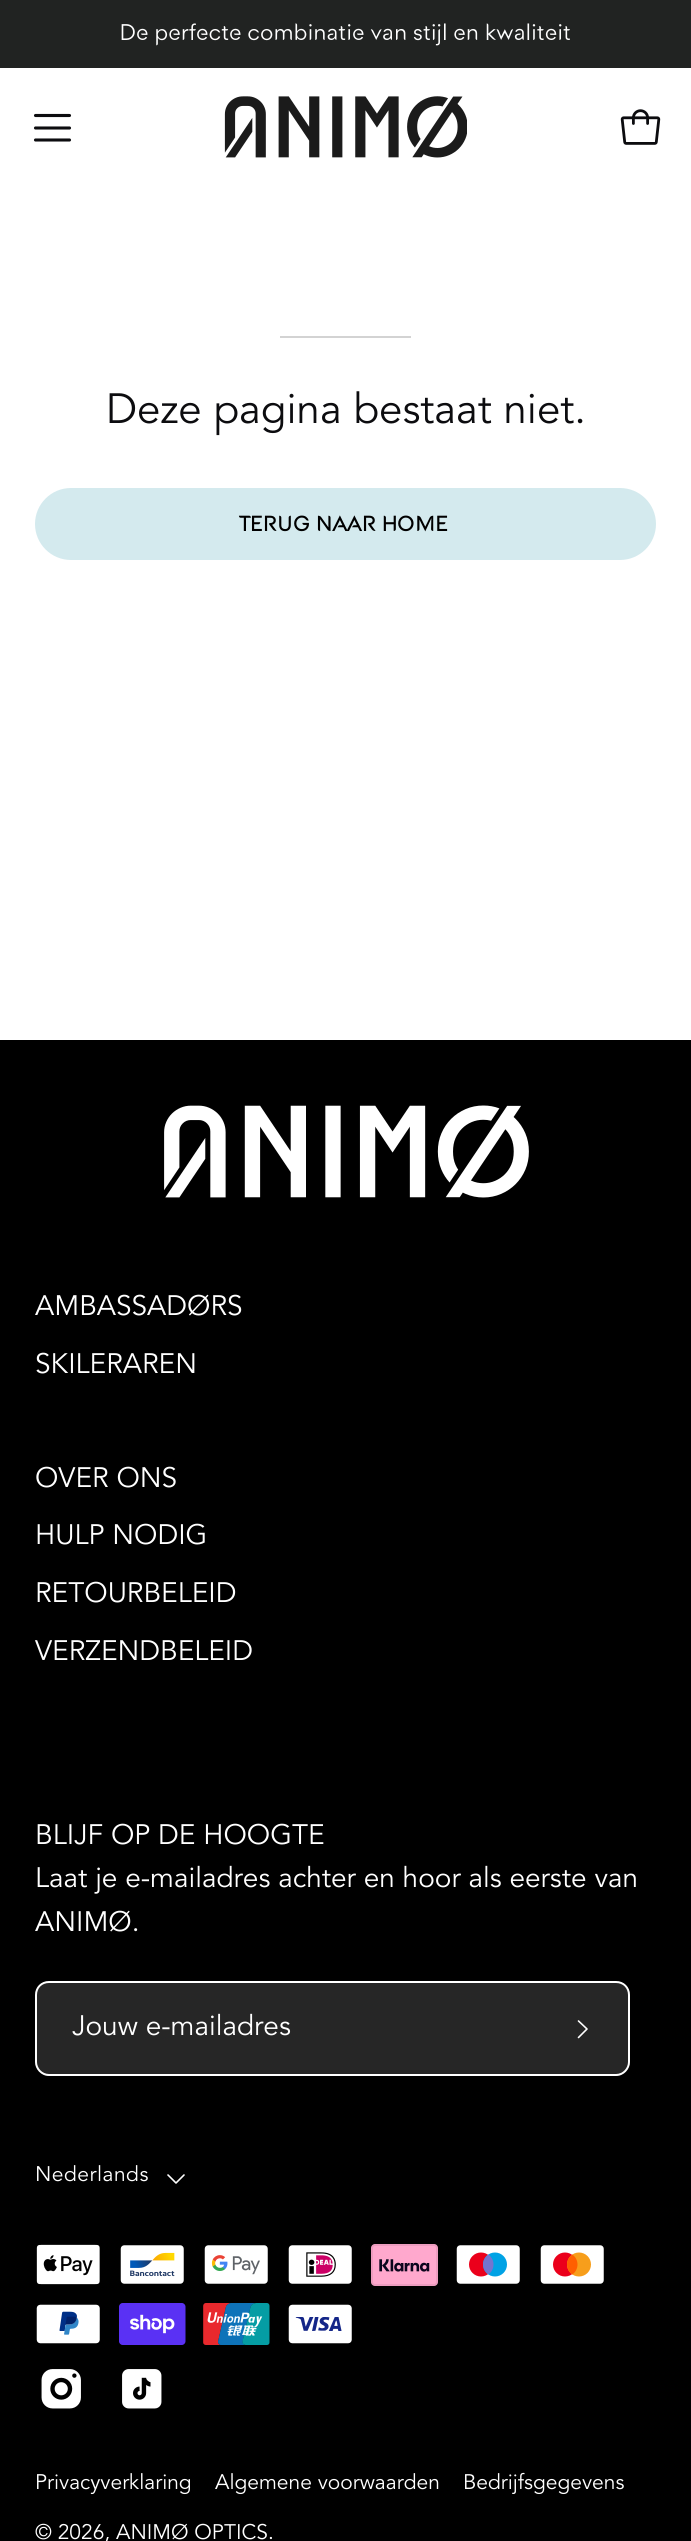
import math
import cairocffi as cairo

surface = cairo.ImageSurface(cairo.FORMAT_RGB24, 691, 2541)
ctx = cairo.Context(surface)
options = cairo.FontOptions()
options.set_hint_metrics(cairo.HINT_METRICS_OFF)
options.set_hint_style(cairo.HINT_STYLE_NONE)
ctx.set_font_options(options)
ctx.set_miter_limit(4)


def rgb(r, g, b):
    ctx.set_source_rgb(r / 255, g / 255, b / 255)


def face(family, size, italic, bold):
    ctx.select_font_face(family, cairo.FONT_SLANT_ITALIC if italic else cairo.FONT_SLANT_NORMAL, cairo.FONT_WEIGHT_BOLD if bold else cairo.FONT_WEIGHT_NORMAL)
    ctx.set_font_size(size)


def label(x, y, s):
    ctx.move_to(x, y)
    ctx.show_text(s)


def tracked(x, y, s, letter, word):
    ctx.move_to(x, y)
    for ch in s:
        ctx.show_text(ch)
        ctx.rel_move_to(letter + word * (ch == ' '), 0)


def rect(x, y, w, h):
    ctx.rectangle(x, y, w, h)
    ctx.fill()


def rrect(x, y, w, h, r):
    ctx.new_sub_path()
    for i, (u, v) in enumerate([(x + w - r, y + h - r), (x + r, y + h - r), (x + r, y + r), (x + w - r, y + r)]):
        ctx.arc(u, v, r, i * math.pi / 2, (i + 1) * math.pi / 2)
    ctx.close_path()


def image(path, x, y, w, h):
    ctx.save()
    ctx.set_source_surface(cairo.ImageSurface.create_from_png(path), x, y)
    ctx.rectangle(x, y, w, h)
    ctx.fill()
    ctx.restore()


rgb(255, 255, 255)
ctx.paint()
rgb(33, 35, 34)
rect(0, 0, 691, 68)
face('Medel', 22.7, 0, 0)
rgb(255, 255, 255)
label(121, 40, 'De perfecte combinatie van stijl en kwaliteit')
ctx.new_path()
ctx.move_to(35.5, 128)
ctx.line_to(69.5, 128)
ctx.move_to(35.5, 115.5)
ctx.line_to(69.5, 115.5)
ctx.move_to(35.5, 140)
ctx.line_to(69.5, 140)
rgb(12, 12, 15)
ctx.set_line_width(3.1)
ctx.set_line_cap(cairo.LINE_CAP_ROUND)
ctx.set_line_join(cairo.LINE_JOIN_ROUND)
ctx.stroke()
image('image0.png', 224, 96, 243, 62)
image('image1.png', 620, 109, 41, 36)
rgb(211, 211, 211)
rect(280, 336, 131, 2)
face('Avenir', 42, 0, 0)
rgb(12, 12, 15)
label(106, 423, 'Deze pagina bestaat niet.')
rgb(212, 234, 238)
rrect(35, 488, 621, 72, 36)
ctx.fill()
face('Medel', 21, 0, 1)
rgb(0, 0, 0)
tracked(241, 531, 'TERUG NAAR HOME', 1, 0)
rect(0, 1040, 691, 1501)
image('image2.png', 164, 1105, 365, 93)
face('Avenir', 28, 0, 0)
rgb(255, 255, 255)
label(35, 1315, 'AMBASSADØRS')
label(35, 1373, 'SKILERAREN')
label(35, 1487, 'OVER ONS')
label(35, 1544, 'HULP NODIG')
label(35, 1602, 'RETOURBELEID')
label(35, 1660, 'VERZENDBELEID')
label(35, 1844, 'BLIJF OP DE HOOGTE')
label(35, 1887, 'Laat je e-mailadres achter en hoor als eerste van')
label(35, 1931, 'ANIMØ.')
rgb(38, 38, 38)
ctx.new_path()
ctx.move_to(49, 1981)
ctx.line_to(536, 1981)
ctx.line_to(536, 2076)
ctx.line_to(49, 2076)
ctx.curve_to(41.5, 2076, 35, 2069.5, 35, 2062)
ctx.line_to(35, 1995)
ctx.curve_to(35, 1987.5, 41.5, 1981, 49, 1981)
ctx.close_path()
ctx.fill()
rgb(255, 255, 255)
ctx.set_fill_rule(cairo.FILL_RULE_EVEN_ODD)
ctx.new_path()
ctx.move_to(49, 1981)
ctx.line_to(536, 1981)
ctx.line_to(536, 2076)
ctx.line_to(49, 2076)
ctx.curve_to(41, 2076, 35, 2069, 35, 2062)
ctx.line_to(35, 1995)
ctx.curve_to(35, 1987, 41, 1981, 49, 1981)
ctx.close_path()
ctx.move_to(49, 1983)
ctx.line_to(536, 1983)
ctx.line_to(536, 2074)
ctx.line_to(49, 2074)
ctx.curve_to(42, 2074, 37, 2068, 37, 2062)
ctx.line_to(37, 1995)
ctx.curve_to(37, 1988, 42, 1983, 49, 1983)
ctx.close_path()
ctx.fill()
label(72, 2035, 'Jouw e-mailadres')
rgb(38, 38, 38)
ctx.new_path()
ctx.move_to(536, 1981)
ctx.line_to(616, 1981)
ctx.curve_to(623.5, 1981, 630, 1987.5, 630, 1995)
ctx.line_to(630, 2062)
ctx.curve_to(630, 2069.5, 623.5, 2076, 616, 2076)
ctx.line_to(536, 2076)
ctx.close_path()
ctx.fill()
rgb(255, 255, 255)
ctx.new_path()
ctx.move_to(536, 1981)
ctx.line_to(616, 1981)
ctx.curve_to(624, 1981, 630, 1987, 630, 1995)
ctx.line_to(630, 2062)
ctx.curve_to(630, 2069, 624, 2076, 616, 2076)
ctx.line_to(536, 2076)
ctx.close_path()
ctx.move_to(536, 1983)
ctx.line_to(616, 1983)
ctx.curve_to(623, 1983, 628, 1988, 628, 1995)
ctx.line_to(628, 2062)
ctx.curve_to(628, 2068, 623, 2074, 616, 2074)
ctx.line_to(536, 2074)
ctx.close_path()
ctx.fill()
ctx.new_path()
ctx.move_to(578.5, 2021)
ctx.line_to(587, 2029)
ctx.line_to(578.5, 2037.5)
ctx.set_line_width(1.6)
ctx.stroke()
face('Avenir', 21, 0, 0)
tracked(35, 2181, 'Nederlands', 0.5, 0)
ctx.new_path()
ctx.move_to(184, 2175)
ctx.line_to(176, 2183)
ctx.line_to(168, 2175)
ctx.stroke()
image('image3.png', 36, 2244, 64, 41)
image('image4.png', 120, 2245, 64, 39)
image('image5.png', 204, 2245, 64, 39)
image('image6.png', 288, 2245, 64, 39)
image('image7.png', 371, 2244, 67, 42)
image('image8.png', 456, 2245, 64, 39)
image('image9.png', 540, 2245, 64, 39)
image('image10.png', 36, 2304, 64, 40)
image('image11.png', 119, 2303, 67, 42)
image('image12.png', 203, 2303, 67, 42)
image('image13.png', 288, 2304, 64, 40)
image('image14.png', 41, 2369, 40, 40)
image('image15.png', 122, 2369, 40, 40)
label(35, 2489, 'Privacyverklaring')
label(215, 2489, 'Algemene voorwaarden')
label(463, 2489, 'Bedrijfsgegevens')
label(35, 2539, '© 2026, ANIMØ OPTICS.')
surface.write_to_png('render.png')
